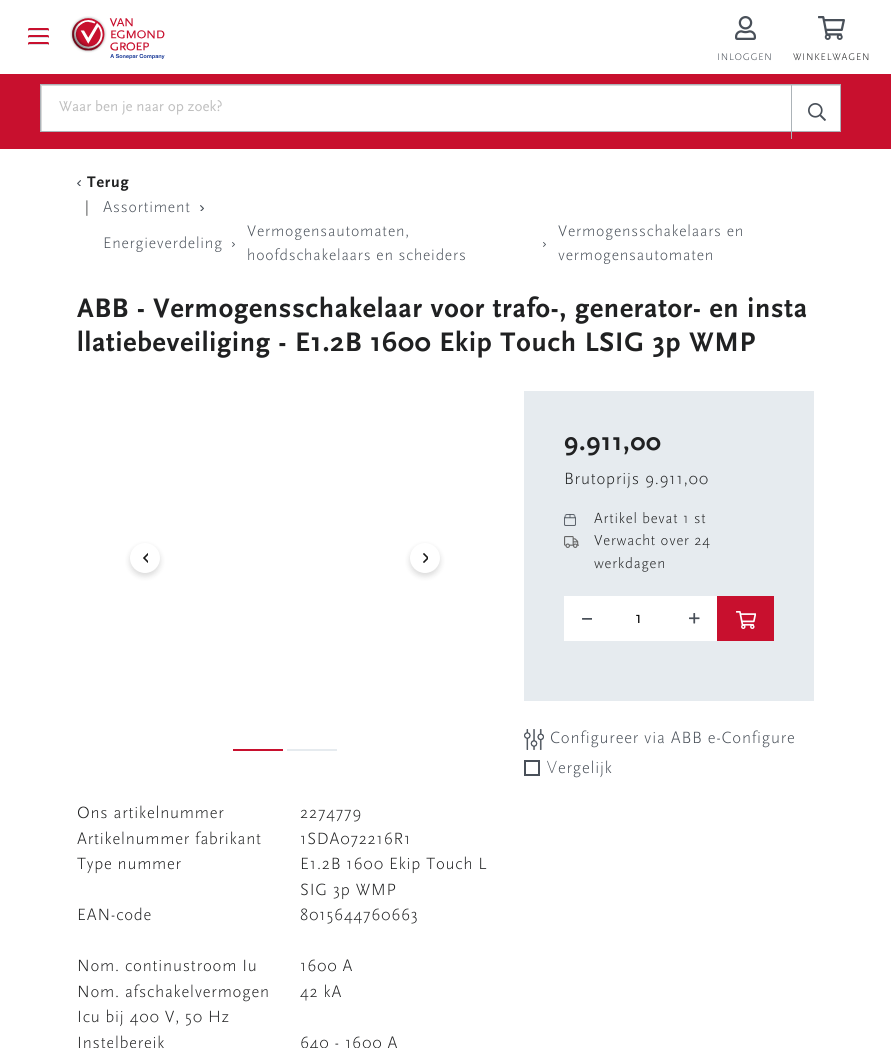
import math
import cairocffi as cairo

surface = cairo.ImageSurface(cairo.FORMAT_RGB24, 891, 1048)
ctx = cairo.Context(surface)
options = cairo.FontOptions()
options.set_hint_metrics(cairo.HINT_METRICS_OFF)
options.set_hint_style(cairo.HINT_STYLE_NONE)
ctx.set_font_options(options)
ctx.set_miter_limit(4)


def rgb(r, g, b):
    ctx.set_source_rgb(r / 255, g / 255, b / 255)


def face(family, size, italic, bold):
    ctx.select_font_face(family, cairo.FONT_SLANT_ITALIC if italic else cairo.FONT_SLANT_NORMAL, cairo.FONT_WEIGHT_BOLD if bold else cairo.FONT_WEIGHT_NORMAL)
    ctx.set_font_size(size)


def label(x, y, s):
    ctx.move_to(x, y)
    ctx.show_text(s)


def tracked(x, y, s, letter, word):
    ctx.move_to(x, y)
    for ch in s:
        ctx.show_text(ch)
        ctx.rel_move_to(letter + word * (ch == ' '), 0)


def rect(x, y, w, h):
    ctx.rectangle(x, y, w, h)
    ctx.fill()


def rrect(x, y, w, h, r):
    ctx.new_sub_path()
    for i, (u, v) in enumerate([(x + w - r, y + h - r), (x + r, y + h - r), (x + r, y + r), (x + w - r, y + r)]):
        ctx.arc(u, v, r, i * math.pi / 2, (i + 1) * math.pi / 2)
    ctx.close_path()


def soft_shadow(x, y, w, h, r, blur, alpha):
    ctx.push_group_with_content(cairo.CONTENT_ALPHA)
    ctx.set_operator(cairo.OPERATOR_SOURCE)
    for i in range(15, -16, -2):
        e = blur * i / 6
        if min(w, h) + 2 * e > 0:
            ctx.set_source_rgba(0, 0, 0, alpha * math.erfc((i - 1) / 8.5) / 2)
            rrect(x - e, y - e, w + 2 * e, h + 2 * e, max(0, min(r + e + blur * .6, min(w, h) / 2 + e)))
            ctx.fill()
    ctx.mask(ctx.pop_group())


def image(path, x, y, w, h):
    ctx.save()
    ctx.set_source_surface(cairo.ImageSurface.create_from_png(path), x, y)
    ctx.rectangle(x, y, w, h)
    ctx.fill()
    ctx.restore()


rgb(255, 255, 255)
ctx.paint()
rgb(200, 16, 46)
rrect(28, 28, 21, 3, 1.5)
ctx.fill()
rgb(218, 225, 231)
rect(29, 30, 19, 1)
rgb(200, 16, 46)
rrect(28, 35, 21, 3, 1.5)
ctx.fill()
rgb(218, 225, 231)
rect(29, 37, 19, 1)
rgb(200, 16, 46)
rrect(28, 42, 21, 3, 1.5)
ctx.fill()
rgb(218, 225, 231)
rect(29, 44, 19, 1)
image('image0.png', 70, 16, 95, 43)
image('image1.png', 735, 16, 21, 24)
face('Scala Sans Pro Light', 10, 0, 0)
rgb(73, 80, 89)
tracked(717, 60, 'INLOGGEN', 0.8, 0)
image('image2.png', 818, 16, 27, 24)
rgb(32, 33, 34)
tracked(793, 60, 'WINKELWAGEN', 0.8, 0)
rgb(200, 16, 46)
rect(0, 74, 891, 75)
rgb(255, 255, 255)
rect(42, 86, 798, 45)
ctx.save()
ctx.rectangle(41, 85, 799, 46)
ctx.clip()
rgb(217, 217, 217)
ctx.set_fill_rule(cairo.FILL_RULE_EVEN_ODD)
ctx.new_path()
ctx.move_to(-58, -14)
ctx.line_to(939, -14)
ctx.line_to(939, 230)
ctx.line_to(-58, 230)
ctx.close_path()
ctx.move_to(42, 86)
ctx.line_to(841, 86)
ctx.line_to(841, 132)
ctx.line_to(42, 132)
ctx.close_path()
ctx.fill()
ctx.restore()
ctx.rectangle(40.5, 84.5, 800, 47)
rgb(172, 179, 184)
ctx.set_line_width(1)
ctx.stroke()
face('Scala Sans Pro', 15, 0, 0)
rgb(192, 192, 192)
label(59, 111, 'Waar ben je naar op zoek?')
rgb(172, 179, 184)
rect(791, 84, 1, 55)
image('image3.png', 808, 103, 18, 18)
image('image4.png', 77, 180, 4, 6)
face('Scala Sans Pro', 16, 0, 1)
rgb(32, 33, 34)
tracked(87, 187, 'Terug', 0.8, 0)
face('Scala Sans Pro Light', 16, 0, 0)
tracked(85, 212, '|', 0.8, 0)
rgb(73, 80, 89)
tracked(103, 212, 'Assortiment', 0.8, 0)
image('image5.png', 200, 205, 4, 6)
tracked(103, 248, 'Energieverdeling', 0.8, 0)
image('image6.png', 232, 242, 3, 5)
tracked(247, 236, 'Vermogensautomaten,', 0.8, 0)
tracked(247, 260, 'hoofdschakelaars en scheiders', 0.8, 0)
image('image6.png', 543, 242, 3, 5)
tracked(558, 236, 'Vermogensschakelaars en', 0.8, 0)
tracked(558, 260, 'vermogensautomaten', 0.8, 0)
face('Scala Sans Pro', 28, 0, 1)
rgb(32, 33, 34)
tracked(77, 317, 'ABB - Vermogensschakelaar voor trafo-, generator- en insta', 0.8, 0)
tracked(77, 351, 'llatiebeveiliging - E1.2B 1600 Ekip Touch LSIG 3p WMP', 0.8, 0)
rgb(230, 235, 239)
rect(524, 391, 290, 310)
face('Scala Sans Pro', 26, 0, 1)
rgb(32, 33, 34)
tracked(564, 450, '9.911,00', 0.8, 0)
face('Scala Sans Pro Light', 17, 0, 0)
tracked(564, 484, 'Brutoprijs 9.911,00', 0.8, 0)
image('image7.png', 564, 514, 12, 12)
face('Scala Sans Pro Light', 15, 0, 0)
tracked(594, 523, 'Artikel bevat 1 st', 0.8, 0)
image('image8.png', 564, 536, 15, 12)
tracked(594, 545, 'Verwacht over 24', 0.8, 0)
tracked(594, 568, 'werkdagen', 0.8, 0)
rgb(255, 255, 255)
rect(564, 596, 153, 45)
image('image9.png', 582, 618, 10, 2)
face('Scala Sans Pro', 17, 0, 0)
rgb(0, 0, 0)
label(635, 623, '1')
image('image10.png', 689, 613, 11, 11)
rgb(200, 16, 46)
rect(717, 596, 57, 45)
image('image11.png', 736, 611, 20, 18)
image('image12.png', 524, 729, 20, 21)
face('Scala Sans Pro Light', 17, 0, 0)
rgb(73, 80, 89)
tracked(550, 743, 'Configureer via ABB e-Configure', 0.8, 0)
ctx.rectangle(525, 761, 14, 14)
ctx.set_line_width(2)
ctx.stroke()
face('Noto Sans ExtraLight', 17, 0, 0)
tracked(547, 773, 'V', 0.8, 0)
face('Scala Sans Pro Light', 17, 0, 0)
tracked(558, 773, 'ergelijk', 0.8, 0)
rgb(0, 0, 0)
soft_shadow(130, 546, 30, 30, 15, 3, 0.15)
rgb(255, 255, 255)
ctx.arc(145, 558, 15, 0, 2 * math.pi)
ctx.fill()
image('image13.png', 143, 553, 5, 10)
rgb(0, 0, 0)
soft_shadow(410, 546, 30, 30, 15, 3, 0.15)
rgb(255, 255, 255)
ctx.arc(425, 558, 15, 0, 2 * math.pi)
ctx.fill()
image('image14.png', 423, 553, 5, 10)
rgb(200, 16, 46)
rect(233, 749, 50, 2)
rgb(230, 235, 239)
rect(287, 749, 50, 2)
rgb(32, 33, 34)
tracked(77, 818, 'Ons artikelnummer', 0.8, 0)
tracked(300, 818, '2274779', 0.8, 0)
tracked(77, 844, 'Artikelnummer fabrikant', 0.8, 0)
tracked(300, 844, '1SDA072216R1', 0.8, 0)
tracked(77, 869, 'Type nummer', 0.8, 0)
tracked(300, 869, 'E1.2B 1600 Ekip Touch L', 0.8, 0)
tracked(300, 895, 'SIG 3p WMP', 0.8, 0)
tracked(77, 920, 'EAN-code', 0.8, 0)
tracked(300, 920, '8015644760663', 0.8, 0)
tracked(77, 971, 'Nom. continustroom Iu', 0.8, 0)
tracked(300, 971, '1600 A', 0.8, 0)
tracked(77, 997, 'Nom. afschakelvermogen', 0.8, 0)
tracked(77, 1022, 'Icu bij 400 V, 50 Hz', 0.8, 0)
tracked(300, 997, '42 kA', 0.8, 0)
tracked(77, 1048, 'Instelbereik', 0.8, 0)
tracked(300, 1048, '640 - 1600 A', 0.8, 0)
surface.write_to_png('render.png')
